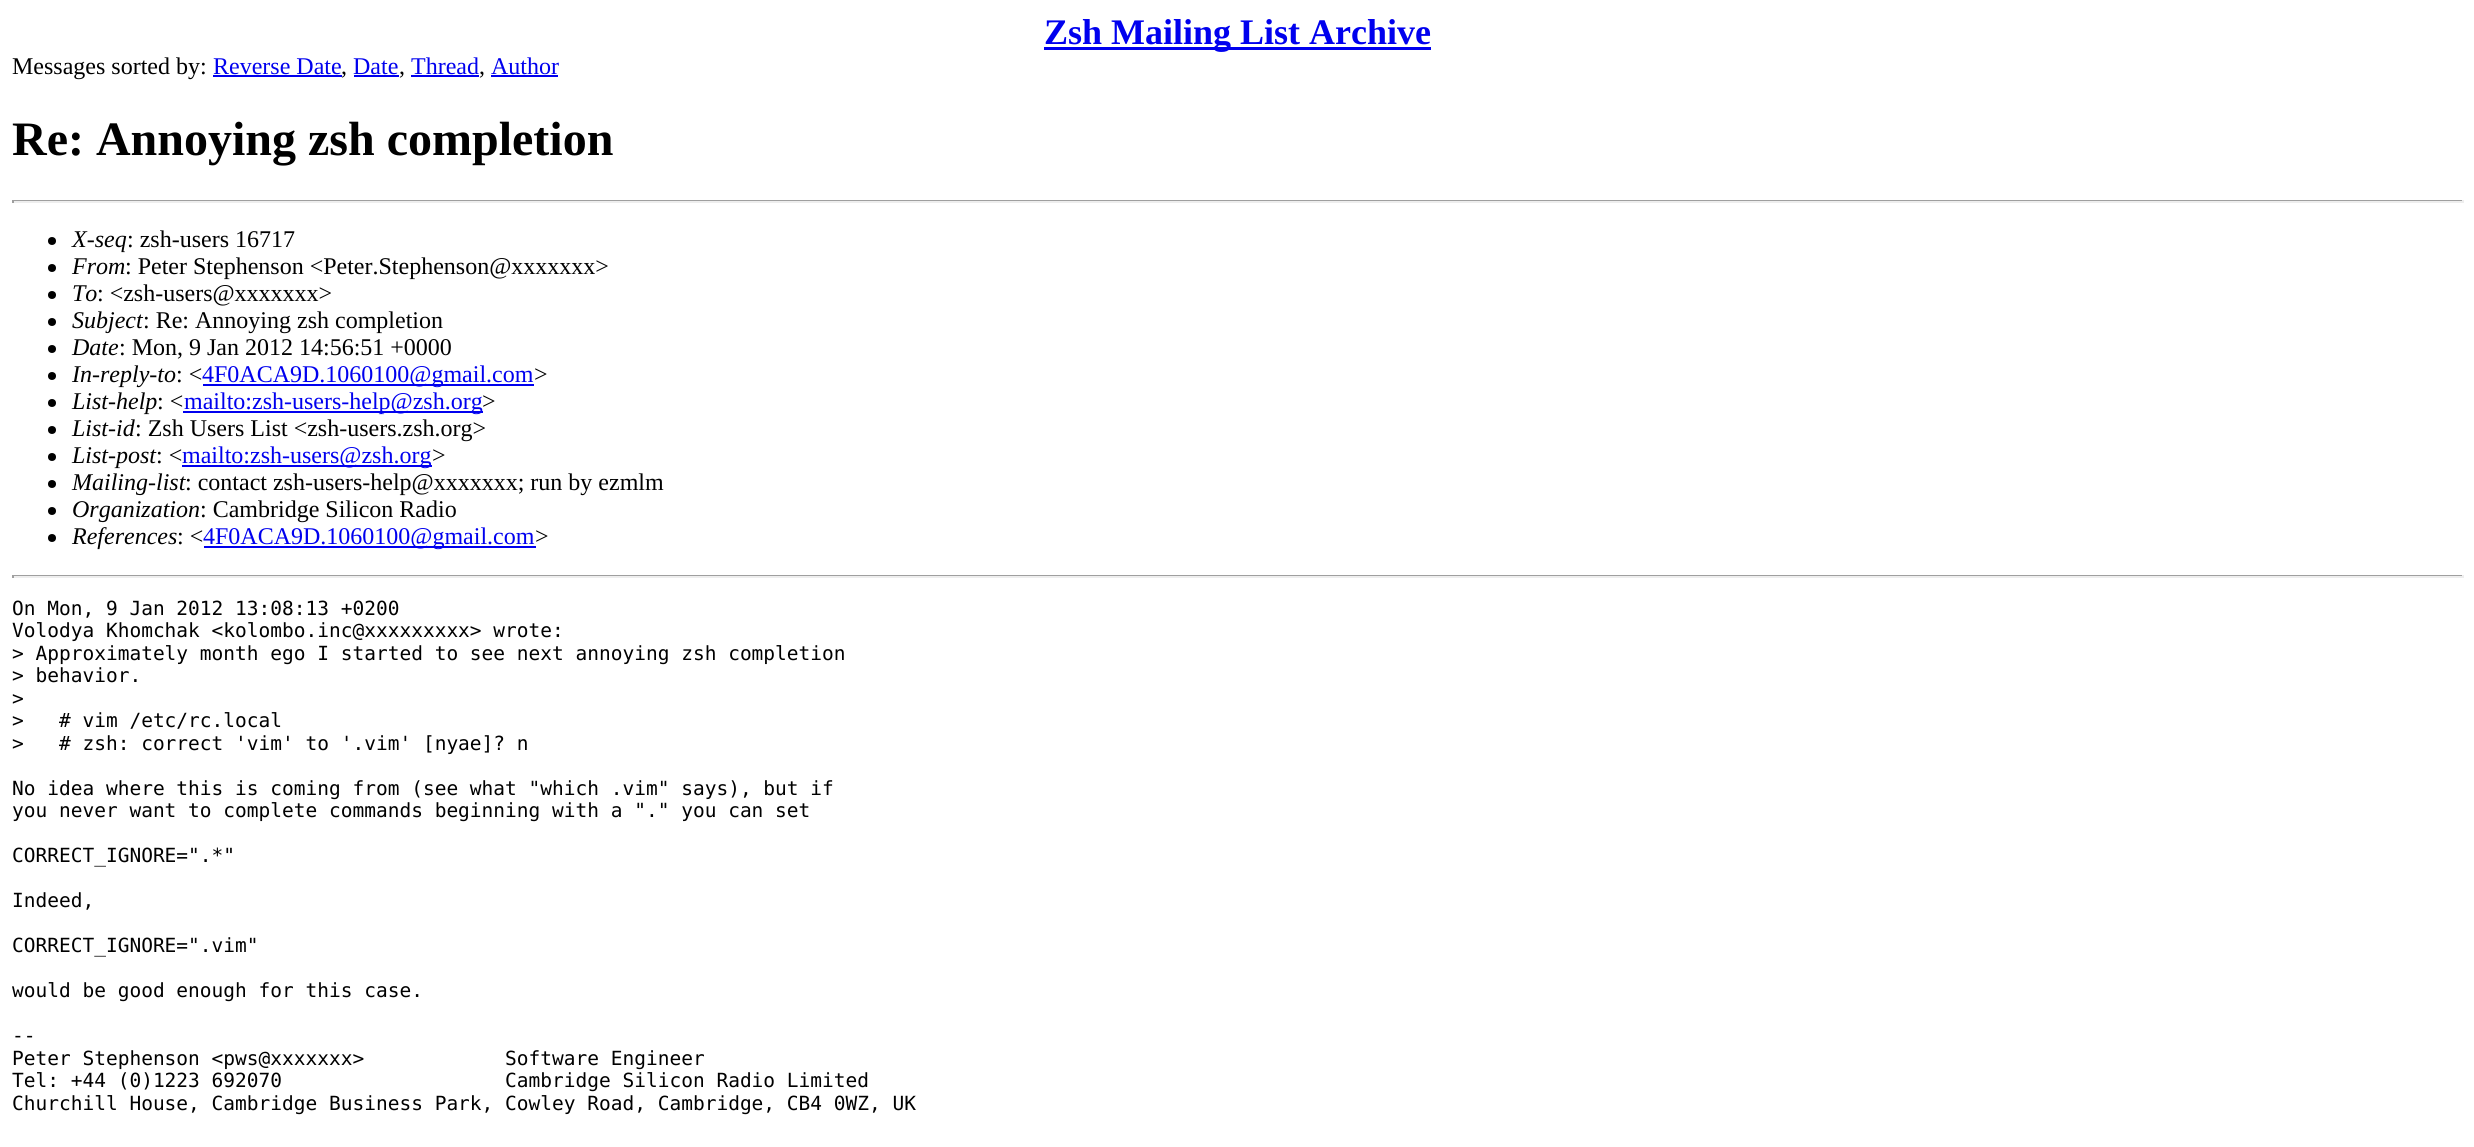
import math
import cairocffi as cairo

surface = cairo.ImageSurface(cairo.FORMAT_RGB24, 2474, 1147)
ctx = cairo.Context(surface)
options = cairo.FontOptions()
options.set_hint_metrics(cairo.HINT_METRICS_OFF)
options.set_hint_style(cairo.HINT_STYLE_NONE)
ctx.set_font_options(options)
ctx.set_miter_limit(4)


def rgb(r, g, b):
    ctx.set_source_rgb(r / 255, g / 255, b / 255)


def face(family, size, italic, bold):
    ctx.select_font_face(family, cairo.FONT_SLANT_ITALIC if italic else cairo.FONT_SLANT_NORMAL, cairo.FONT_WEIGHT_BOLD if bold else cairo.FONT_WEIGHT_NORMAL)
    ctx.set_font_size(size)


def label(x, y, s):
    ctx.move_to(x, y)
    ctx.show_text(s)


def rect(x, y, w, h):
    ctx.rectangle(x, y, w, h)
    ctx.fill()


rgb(255, 255, 255)
ctx.paint()
rgb(0, 0, 238)
rect(1044, 47, 387, 3)
face('Liberation Serif', 36, 0, 1)
label(1044, 44, 'Zsh Mailing List Archive')
face('Liberation Serif', 24, 0, 0)
rgb(0, 0, 0)
label(12, 74, 'Messages sorted by:')
rgb(0, 0, 238)
label(213, 74, 'Reverse Date')
rect(213, 75, 129, 2)
rgb(0, 0, 0)
label(341, 74, ',')
rgb(0, 0, 238)
label(353, 74, 'Date')
rect(354, 75, 45, 2)
rgb(0, 0, 0)
label(399, 74, ',')
rgb(0, 0, 238)
label(411, 74, 'Thread')
rect(411, 75, 68, 2)
rgb(0, 0, 0)
label(479, 74, ',')
rgb(0, 0, 238)
label(491, 74, 'Author')
rect(491, 75, 67, 2)
face('Liberation Serif', 48, 0, 1)
rgb(0, 0, 0)
label(12, 155, 'Re: Annoying zsh completion')
rgb(159, 159, 159)
rect(12, 200, 2451, 1)
rgb(238, 238, 238)
rect(2462, 200, 2, 3)
rect(12, 201, 2451, 2)
rgb(159, 159, 159)
rect(12, 200, 2, 3)
rgb(0, 0, 0)
ctx.new_path()
ctx.arc(52, 241, 4, 0, 2 * math.pi)
ctx.fill()
face('Liberation Serif', 24, 1, 0)
label(72, 247, 'X-seq')
face('Liberation Serif', 24, 0, 0)
label(127, 247, ': zsh-users 16717')
ctx.new_path()
ctx.arc(52, 268, 4, 0, 2 * math.pi)
ctx.fill()
face('Liberation Serif', 24, 1, 0)
label(72, 274, 'From')
face('Liberation Serif', 24, 0, 0)
label(125, 274, ': Peter Stephenson <Peter.Stephenson@xxxxxxx>')
ctx.new_path()
ctx.arc(52, 295, 4, 0, 2 * math.pi)
ctx.fill()
face('Liberation Serif', 24, 1, 0)
label(72, 301, 'To')
face('Liberation Serif', 24, 0, 0)
label(97, 301, ': <zsh-users@xxxxxxx>')
ctx.new_path()
ctx.arc(52, 322, 4, 0, 2 * math.pi)
ctx.fill()
face('Liberation Serif', 24, 1, 0)
label(72, 328, 'Subject')
face('Liberation Serif', 24, 0, 0)
label(143, 328, ': Re: Annoying zsh completion')
ctx.new_path()
ctx.arc(52, 349, 4, 0, 2 * math.pi)
ctx.fill()
face('Liberation Serif', 24, 1, 0)
label(72, 355, 'Date')
face('Liberation Serif', 24, 0, 0)
label(119, 355, ': Mon, 9 Jan 2012 14:56:51 +0000')
ctx.new_path()
ctx.arc(52, 376, 4, 0, 2 * math.pi)
ctx.fill()
face('Liberation Serif', 24, 1, 0)
label(72, 382, 'In-reply-to')
face('Liberation Serif', 24, 0, 0)
label(176, 382, ': <')
rgb(0, 0, 238)
rect(203, 384, 331, 2)
label(202, 382, '4F0ACA9D.1060100@gmail.com')
rgb(0, 0, 0)
label(534, 382, '>')
ctx.new_path()
ctx.arc(52, 403, 4, 0, 2 * math.pi)
ctx.fill()
face('Liberation Serif', 24, 1, 0)
label(72, 409, 'List-help')
face('Liberation Serif', 24, 0, 0)
label(157, 409, ': <')
rgb(0, 0, 238)
rect(183, 411, 300, 2)
label(184, 409, 'mailto:zsh-users-help@zsh.org')
rgb(0, 0, 0)
label(482, 409, '>')
ctx.new_path()
ctx.arc(52, 430, 4, 0, 2 * math.pi)
ctx.fill()
face('Liberation Serif', 24, 1, 0)
label(72, 436, 'List-id')
face('Liberation Serif', 24, 0, 0)
label(135, 436, ': Zsh Users List <zsh-users.zsh.org>')
ctx.new_path()
ctx.arc(52, 457, 4, 0, 2 * math.pi)
ctx.fill()
face('Liberation Serif', 24, 1, 0)
label(72, 463, 'List-post')
face('Liberation Serif', 24, 0, 0)
label(156, 463, ': <')
rgb(0, 0, 238)
rect(182, 465, 250, 2)
label(182, 463, 'mailto:zsh-users@zsh.org')
rgb(0, 0, 0)
label(432, 463, '>')
ctx.new_path()
ctx.arc(52, 484, 4, 0, 2 * math.pi)
ctx.fill()
face('Liberation Serif', 24, 1, 0)
label(72, 490, 'Mailing-list')
face('Liberation Serif', 24, 0, 0)
label(185, 490, ': contact zsh-users-help@xxxxxxx; run by ezmlm')
ctx.new_path()
ctx.arc(52, 511, 4, 0, 2 * math.pi)
ctx.fill()
face('Liberation Serif', 24, 1, 0)
label(72, 517, 'Organization')
face('Liberation Serif', 24, 0, 0)
label(200, 517, ': Cambridge Silicon Radio')
ctx.new_path()
ctx.arc(52, 538, 4, 0, 2 * math.pi)
ctx.fill()
face('Liberation Serif', 24, 1, 0)
label(72, 544, 'References')
face('Liberation Serif', 24, 0, 0)
label(177, 544, ': <')
rgb(0, 0, 238)
rect(204, 546, 332, 2)
label(203, 544, '4F0ACA9D.1060100@gmail.com')
rgb(0, 0, 0)
label(535, 544, '>')
rgb(159, 159, 159)
rect(12, 575, 2451, 1)
rgb(238, 238, 238)
rect(2462, 575, 2, 3)
rect(12, 576, 2451, 2)
rgb(159, 159, 159)
rect(12, 575, 2, 3)
face('DejaVu Sans Mono', 19.5, 0, 0)
rgb(0, 0, 0)
label(12, 615, 'On Mon, 9 Jan 2012 13:08:13 +0200')
label(12, 637, 'Volodya Khomchak <kolombo.inc@xxxxxxxxx> wrote:')
label(12, 660, '> Approximately month ego I started to see next annoying zsh completion')
label(12, 682, '> behavior.')
label(12, 705, '>')
label(12, 727, '>   # vim /etc/rc.local')
label(12, 750, '>   # zsh: correct \'vim\' to \'.vim\' [nyae]? n')
label(12, 795, 'No idea where this is coming from (see what "which .vim" says), but if')
label(12, 817, 'you never want to complete commands beginning with a "." you can set')
label(12, 862, 'CORRECT_IGNORE=".*"')
label(12, 907, 'Indeed,')
label(12, 952, 'CORRECT_IGNORE=".vim"')
label(12, 997, 'would be good enough for this case.')
label(12, 1042, '--')
label(12, 1065, 'Peter Stephenson <pws@xxxxxxx>            Software Engineer')
label(12, 1087, 'Tel: +44 (0)1223 692070                   Cambridge Silicon Radio Limited')
label(12, 1110, 'Churchill House, Cambridge Business Park, Cowley Road, Cambridge, CB4 0WZ, UK')
surface.write_to_png('render.png')
